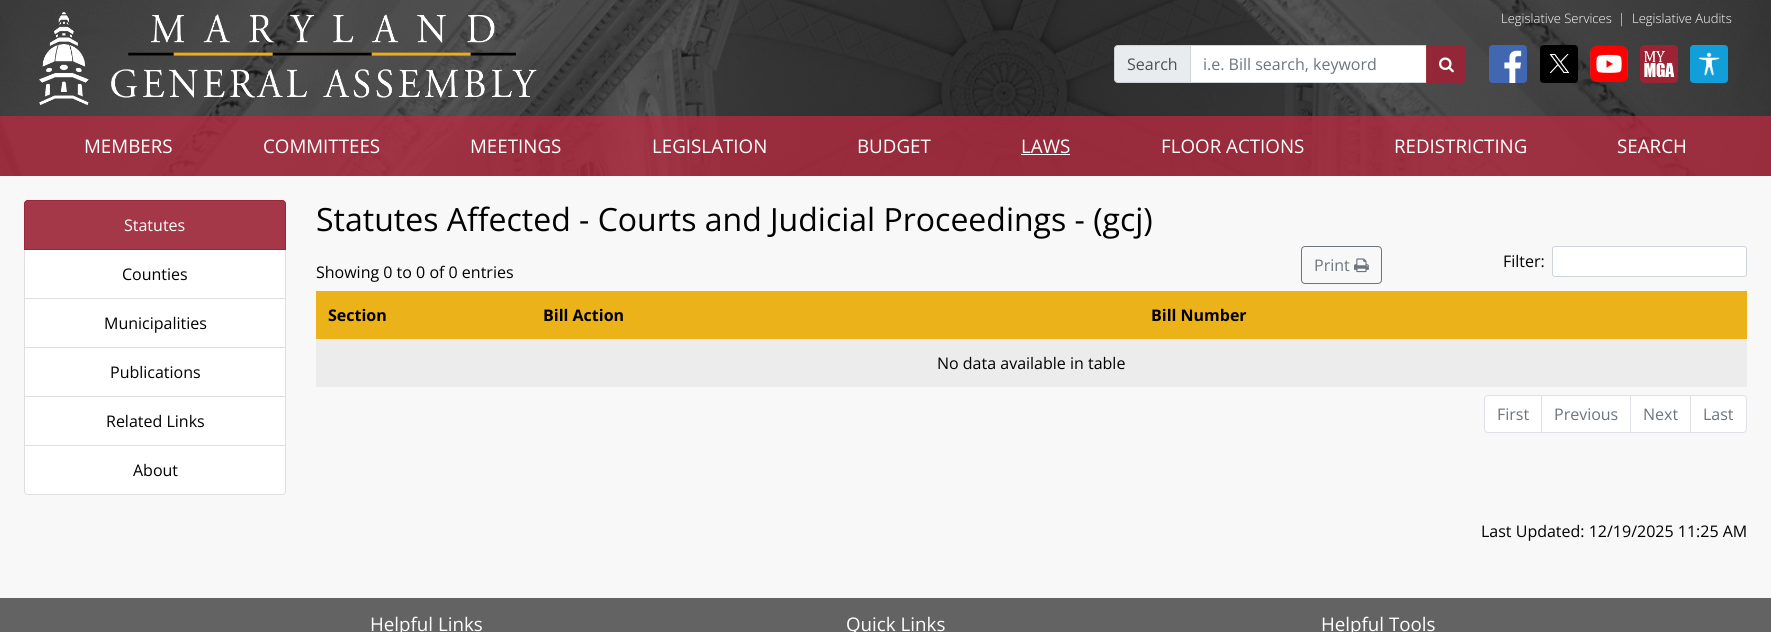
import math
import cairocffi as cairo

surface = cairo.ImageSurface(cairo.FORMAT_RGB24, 1771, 632)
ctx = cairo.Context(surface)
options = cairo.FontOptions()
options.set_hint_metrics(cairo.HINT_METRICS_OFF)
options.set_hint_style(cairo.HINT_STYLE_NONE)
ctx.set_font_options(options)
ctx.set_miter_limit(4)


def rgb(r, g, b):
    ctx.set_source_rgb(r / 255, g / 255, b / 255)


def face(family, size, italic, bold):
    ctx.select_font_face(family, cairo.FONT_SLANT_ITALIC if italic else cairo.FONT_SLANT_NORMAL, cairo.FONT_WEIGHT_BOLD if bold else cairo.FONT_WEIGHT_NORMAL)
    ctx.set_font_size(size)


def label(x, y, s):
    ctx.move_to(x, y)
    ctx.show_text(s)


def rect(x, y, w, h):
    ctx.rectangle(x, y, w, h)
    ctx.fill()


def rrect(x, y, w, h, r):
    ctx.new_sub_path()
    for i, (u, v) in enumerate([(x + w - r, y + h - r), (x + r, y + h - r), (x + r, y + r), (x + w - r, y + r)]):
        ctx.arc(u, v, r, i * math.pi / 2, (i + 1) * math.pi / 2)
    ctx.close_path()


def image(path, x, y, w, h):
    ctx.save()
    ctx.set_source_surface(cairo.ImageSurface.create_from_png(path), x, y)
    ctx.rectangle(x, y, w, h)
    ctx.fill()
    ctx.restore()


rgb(248, 248, 248)
ctx.paint()
image('image0.png', 0, 0, 1771, 176)
ctx.set_source_rgba(0, 0, 0, 0.6)
rect(0, 0, 1771, 116)
image('image1.png', 39, 12, 498, 94)
face('Open Sans Light', 13, 0, 0)
rgb(255, 255, 255)
label(1501, 23, 'Legislative Services')
label(1618, 23, '|')
label(1632, 23, 'Legislative Audits')
rgb(233, 236, 239)
ctx.new_path()
ctx.move_to(1118, 45.5)
ctx.line_to(1190.5, 45.5)
ctx.line_to(1190.5, 82.5)
ctx.line_to(1118, 82.5)
ctx.curve_to(1116, 82.5, 1114.5, 81, 1114.5, 79)
ctx.line_to(1114.5, 49)
ctx.curve_to(1114.5, 47, 1116, 45.5, 1118, 45.5)
ctx.close_path()
ctx.fill_preserve()
rgb(206, 212, 218)
ctx.set_line_width(1)
ctx.stroke()
face('Open Sans', 16, 0, 0)
rgb(73, 80, 87)
label(1127, 70, 'Search')
rgb(255, 255, 255)
ctx.rectangle(1190.5, 45.5, 236, 37)
ctx.fill_preserve()
rgb(206, 212, 218)
ctx.stroke()
rgb(108, 117, 125)
label(1203, 70, 'i.e. Bill search, keyword')
ctx.set_source_rgba(0.612, 0.141, 0.212, 0.9)
ctx.new_path()
ctx.move_to(1426, 45)
ctx.line_to(1462, 45)
ctx.curve_to(1464, 45, 1466, 47, 1466, 49)
ctx.line_to(1466, 79)
ctx.curve_to(1466, 81, 1464, 83, 1462, 83)
ctx.line_to(1426, 83)
ctx.close_path()
ctx.fill()
image('image2.png', 1439, 57, 15, 16)
image('image3.png', 1489, 45, 38, 38)
image('image4.png', 1540, 45, 38, 38)
image('image5.png', 1590, 45, 38, 38)
image('image6.png', 1640, 45, 38, 38)
image('image7.png', 1690, 45, 38, 38)
rect(0, 116, 1771, 60)
face('Open Sans', 18.75, 0, 0)
rgb(255, 255, 255)
label(84, 153, 'MEMBERS')
label(263, 153, 'COMMITTEES')
label(470, 153, 'MEETINGS')
label(652, 153, 'LEGISLATION')
label(857, 153, 'BUDGET')
label(1021, 153, 'LAWS')
rect(1021, 154, 49, 1)
label(1161, 153, 'FLOOR ACTIONS')
label(1394, 153, 'REDISTRICTING')
label(1617, 153, 'SEARCH')
ctx.rectangle(24.5, 249.5, 261, 49)
ctx.fill_preserve()
rgb(223, 223, 223)
ctx.stroke()
ctx.set_source_rgba(0.612, 0.141, 0.212, 0.9)
ctx.new_path()
ctx.move_to(28, 200)
ctx.line_to(282, 200)
ctx.curve_to(284, 200, 286, 202, 286, 204)
ctx.line_to(286, 250)
ctx.line_to(24, 250)
ctx.line_to(24, 204)
ctx.curve_to(24, 202, 26, 200, 28, 200)
ctx.close_path()
ctx.fill()
ctx.new_path()
ctx.move_to(28, 200.5)
ctx.line_to(282, 200.5)
ctx.curve_to(284, 200.5, 285.5, 202, 285.5, 204)
ctx.line_to(285.5, 249.5)
ctx.line_to(24.5, 249.5)
ctx.line_to(24.5, 204)
ctx.curve_to(24.5, 202, 26, 200.5, 28, 200.5)
ctx.close_path()
ctx.stroke()
face('Open Sans', 16, 0, 0)
rgb(255, 255, 255)
label(124, 231, 'Statutes')
rgb(0, 0, 0)
label(122, 280, 'Counties')
rgb(255, 255, 255)
ctx.rectangle(24.5, 298.5, 261, 49)
ctx.fill_preserve()
rgb(223, 223, 223)
ctx.stroke()
rgb(0, 0, 0)
label(104, 329, 'Municipalities')
rgb(255, 255, 255)
ctx.rectangle(24.5, 347.5, 261, 49)
ctx.fill_preserve()
rgb(223, 223, 223)
ctx.stroke()
rgb(0, 0, 0)
label(110, 378, 'Publications')
rgb(255, 255, 255)
ctx.rectangle(24.5, 396.5, 261, 49)
ctx.fill_preserve()
rgb(223, 223, 223)
ctx.stroke()
rgb(0, 0, 0)
label(106, 427, 'Related Links')
rgb(255, 255, 255)
ctx.new_path()
ctx.move_to(24.5, 445.5)
ctx.line_to(285.5, 445.5)
ctx.line_to(285.5, 491)
ctx.curve_to(285.5, 493, 284, 494.5, 282, 494.5)
ctx.line_to(28, 494.5)
ctx.curve_to(26, 494.5, 24.5, 493, 24.5, 491)
ctx.close_path()
ctx.fill_preserve()
rgb(223, 223, 223)
ctx.stroke()
rgb(0, 0, 0)
label(133, 476, 'About')
face('Open Sans', 32, 0, 0)
label(316, 231, 'Statutes Affected - Courts and Judicial Proceedings - (gcj)')
face('Open Sans', 16, 0, 0)
label(316, 278, 'Showing 0 to 0 of 0 entries')
rrect(1301.5, 246.5, 80, 37, 3.5)
rgb(108, 117, 125)
ctx.stroke()
label(1314, 271, 'Print')
image('image8.png', 1354, 258, 15, 15)
rgb(0, 0, 0)
label(1503, 267, 'Filter:')
rgb(255, 255, 255)
rrect(1552.5, 246.5, 194, 30, 2.5)
ctx.fill_preserve()
rgb(206, 212, 218)
ctx.stroke()
rgb(235, 178, 25)
rect(316, 291, 1431, 48)
face('Open Sans', 16, 0, 1)
rgb(0, 0, 0)
label(328, 321, 'Section')
label(543, 321, 'Bill Action')
label(1151, 321, 'Bill Number')
rgb(236, 236, 236)
rect(316, 339, 1431, 48)
face('Open Sans', 16, 0, 0)
rgb(0, 0, 0)
label(937, 369, 'No data available in table')
rgb(255, 255, 255)
ctx.new_path()
ctx.move_to(1488, 395.5)
ctx.line_to(1541.5, 395.5)
ctx.line_to(1541.5, 432.5)
ctx.line_to(1488, 432.5)
ctx.curve_to(1486, 432.5, 1484.5, 431, 1484.5, 429)
ctx.line_to(1484.5, 399)
ctx.curve_to(1484.5, 397, 1486, 395.5, 1488, 395.5)
ctx.close_path()
ctx.fill_preserve()
rgb(222, 226, 230)
ctx.stroke()
rgb(108, 117, 125)
label(1497, 420, 'First')
rgb(255, 255, 255)
ctx.rectangle(1541.5, 395.5, 89, 37)
ctx.fill_preserve()
rgb(222, 226, 230)
ctx.stroke()
rgb(108, 117, 125)
label(1554, 420, 'Previous')
rgb(255, 255, 255)
ctx.rectangle(1630.5, 395.5, 60, 37)
ctx.fill_preserve()
rgb(222, 226, 230)
ctx.stroke()
rgb(108, 117, 125)
label(1643, 420, 'Next')
rgb(255, 255, 255)
ctx.new_path()
ctx.move_to(1690.5, 395.5)
ctx.line_to(1743, 395.5)
ctx.curve_to(1745, 395.5, 1746.5, 397, 1746.5, 399)
ctx.line_to(1746.5, 429)
ctx.curve_to(1746.5, 431, 1745, 432.5, 1743, 432.5)
ctx.line_to(1690.5, 432.5)
ctx.close_path()
ctx.fill_preserve()
rgb(222, 226, 230)
ctx.stroke()
rgb(108, 117, 125)
label(1703, 420, 'Last')
rgb(0, 0, 0)
label(1481, 537, 'Last Updated: 12/19/2025 11:25 AM')
rgb(99, 99, 99)
rect(0, 598, 1771, 34)
face('Open Sans', 18.75, 0, 0)
rgb(255, 255, 255)
label(370, 631, 'Helpful Links')
label(846, 631, 'Quick Links')
label(1321, 631, 'Helpful Tools')
surface.write_to_png('render.png')
